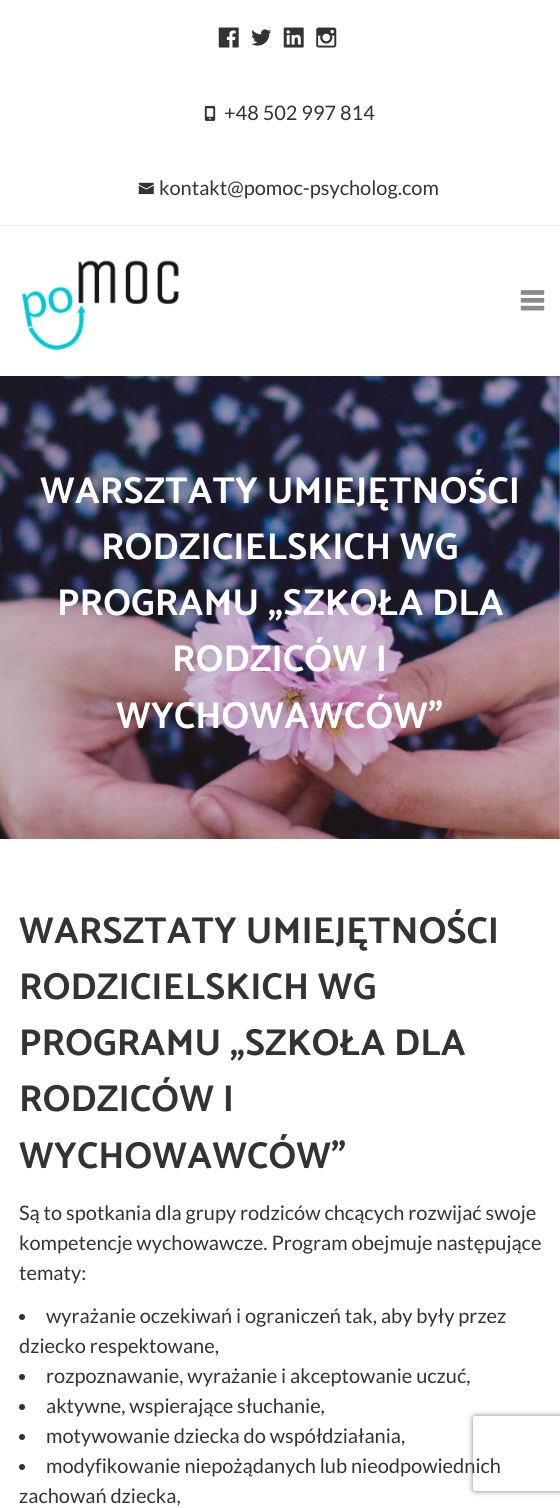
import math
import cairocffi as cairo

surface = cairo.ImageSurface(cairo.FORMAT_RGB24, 560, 1508)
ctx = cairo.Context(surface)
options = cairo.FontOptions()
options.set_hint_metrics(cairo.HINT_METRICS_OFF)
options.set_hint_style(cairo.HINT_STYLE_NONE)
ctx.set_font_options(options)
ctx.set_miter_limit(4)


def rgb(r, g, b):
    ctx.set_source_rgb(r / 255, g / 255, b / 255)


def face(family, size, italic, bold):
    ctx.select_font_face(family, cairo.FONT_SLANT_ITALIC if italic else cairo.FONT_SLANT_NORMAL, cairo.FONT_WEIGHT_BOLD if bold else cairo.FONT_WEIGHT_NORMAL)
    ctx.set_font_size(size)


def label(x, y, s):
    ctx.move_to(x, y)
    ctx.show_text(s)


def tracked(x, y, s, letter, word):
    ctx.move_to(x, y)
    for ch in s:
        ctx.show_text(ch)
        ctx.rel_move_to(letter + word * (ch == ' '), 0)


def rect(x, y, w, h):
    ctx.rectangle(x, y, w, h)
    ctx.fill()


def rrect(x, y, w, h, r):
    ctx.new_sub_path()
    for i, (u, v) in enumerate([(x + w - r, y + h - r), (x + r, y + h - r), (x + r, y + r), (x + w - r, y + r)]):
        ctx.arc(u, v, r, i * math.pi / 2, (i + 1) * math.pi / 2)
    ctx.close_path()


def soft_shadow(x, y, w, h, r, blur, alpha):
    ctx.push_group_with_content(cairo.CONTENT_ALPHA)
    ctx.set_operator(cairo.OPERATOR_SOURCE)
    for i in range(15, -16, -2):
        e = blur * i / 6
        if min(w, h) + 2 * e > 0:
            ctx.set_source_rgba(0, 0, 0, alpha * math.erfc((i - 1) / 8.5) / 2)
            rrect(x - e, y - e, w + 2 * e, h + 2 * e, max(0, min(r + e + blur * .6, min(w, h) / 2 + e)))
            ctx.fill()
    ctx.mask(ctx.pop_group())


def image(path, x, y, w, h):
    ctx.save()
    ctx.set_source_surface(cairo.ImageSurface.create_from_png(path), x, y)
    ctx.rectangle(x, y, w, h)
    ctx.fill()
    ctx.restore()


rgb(255, 255, 255)
ctx.paint()
rgb(234, 234, 234)
rect(0, 225, 560, 1)
image('image0.png', 218, 27, 21, 21)
image('image1.png', 251, 29, 21, 17)
image('image2.png', 283, 27, 21, 21)
image('image3.png', 316, 27, 21, 21)
image('image4.png', 204, 105, 12, 16)
face('Lato', 20, 0, 0)
rgb(51, 51, 51)
label(224, 120, '+48 502 997 814')
image('image5.png', 138, 182, 16, 13)
label(159, 195, 'kontakt@pomoc-psycholog.com')
image('image6.png', 22, 260, 157, 90)
image('image7.png', 520, 290, 25, 21)
image('image8.png', 0, 376, 560, 463)
face('Catamaran', 37.5, 0, 1)
rgb(255, 255, 255)
tracked(40, 503, 'WARSZTATY UMIEJĘTNOŚCI', 0.2, 0)
tracked(101, 559, 'RODZICIELSKICH WG', 0.2, 0)
tracked(57, 615, 'PROGRAMU „SZKOŁA DLA', 0.2, 0)
tracked(172, 671, 'RODZICÓW I', 0.2, 0)
tracked(116, 728, 'WYCHOWAWCÓW”', 0.2, 0)
rgb(51, 51, 51)
tracked(19, 943, 'WARSZTATY UMIEJĘTNOŚCI', 0.2, 0)
tracked(19, 999, 'RODZICIELSKICH WG', 0.2, 0)
tracked(19, 1055, 'PROGRAMU „SZKOŁA DLA', 0.2, 0)
tracked(19, 1111, 'RODZICÓW I', 0.2, 0)
tracked(19, 1168, 'WYCHOWAWCÓW”', 0.2, 0)
face('Lato', 20, 0, 0)
label(19, 1220, 'Są to spotkania dla grupy rodziców chcących rozwijać swoje')
label(19, 1250, 'kompetencje wychowawcze. Program obejmuje następujące')
label(19, 1280, 'tematy:')
ctx.new_path()
ctx.arc(22, 1317, 3, 0, 2 * math.pi)
ctx.fill()
label(46, 1323, 'wyrażanie oczekiwań i ograniczeń tak, aby były przez')
label(19, 1353, 'dziecko respektowane,')
ctx.new_path()
ctx.arc(22, 1377, 3, 0, 2 * math.pi)
ctx.fill()
label(46, 1383, 'rozpoznawanie, wyrażanie i akceptowanie uczuć,')
ctx.new_path()
ctx.arc(22, 1407, 3, 0, 2 * math.pi)
ctx.fill()
label(46, 1413, 'aktywne, wspierające słuchanie,')
ctx.new_path()
ctx.arc(22, 1437, 3, 0, 2 * math.pi)
ctx.fill()
label(46, 1443, 'motywowanie dziecka do współdziałania,')
ctx.new_path()
ctx.arc(22, 1467, 3, 0, 2 * math.pi)
ctx.fill()
label(46, 1473, 'modyfikowanie niepożądanych lub nieodpowiednich')
label(19, 1503, 'zachowań dziecka,')
ctx.save()
ctx.set_fill_rule(cairo.FILL_RULE_EVEN_ODD)
ctx.new_path()
ctx.move_to(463, 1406)
ctx.line_to(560, 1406)
ctx.line_to(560, 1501)
ctx.line_to(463, 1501)
ctx.close_path()
ctx.move_to(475.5, 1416)
ctx.line_to(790.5, 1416)
ctx.curve_to(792, 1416, 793, 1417, 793, 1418.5)
ctx.line_to(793, 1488.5)
ctx.curve_to(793, 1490, 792, 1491, 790.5, 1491)
ctx.line_to(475.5, 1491)
ctx.curve_to(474, 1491, 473, 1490, 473, 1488.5)
ctx.line_to(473, 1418.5)
ctx.curve_to(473, 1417, 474, 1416, 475.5, 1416)
ctx.close_path()
ctx.clip()
rgb(128, 128, 128)
soft_shadow(473, 1416, 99, 75, 2.5, 3, 1)
ctx.restore()
surface.write_to_png('render.png')
